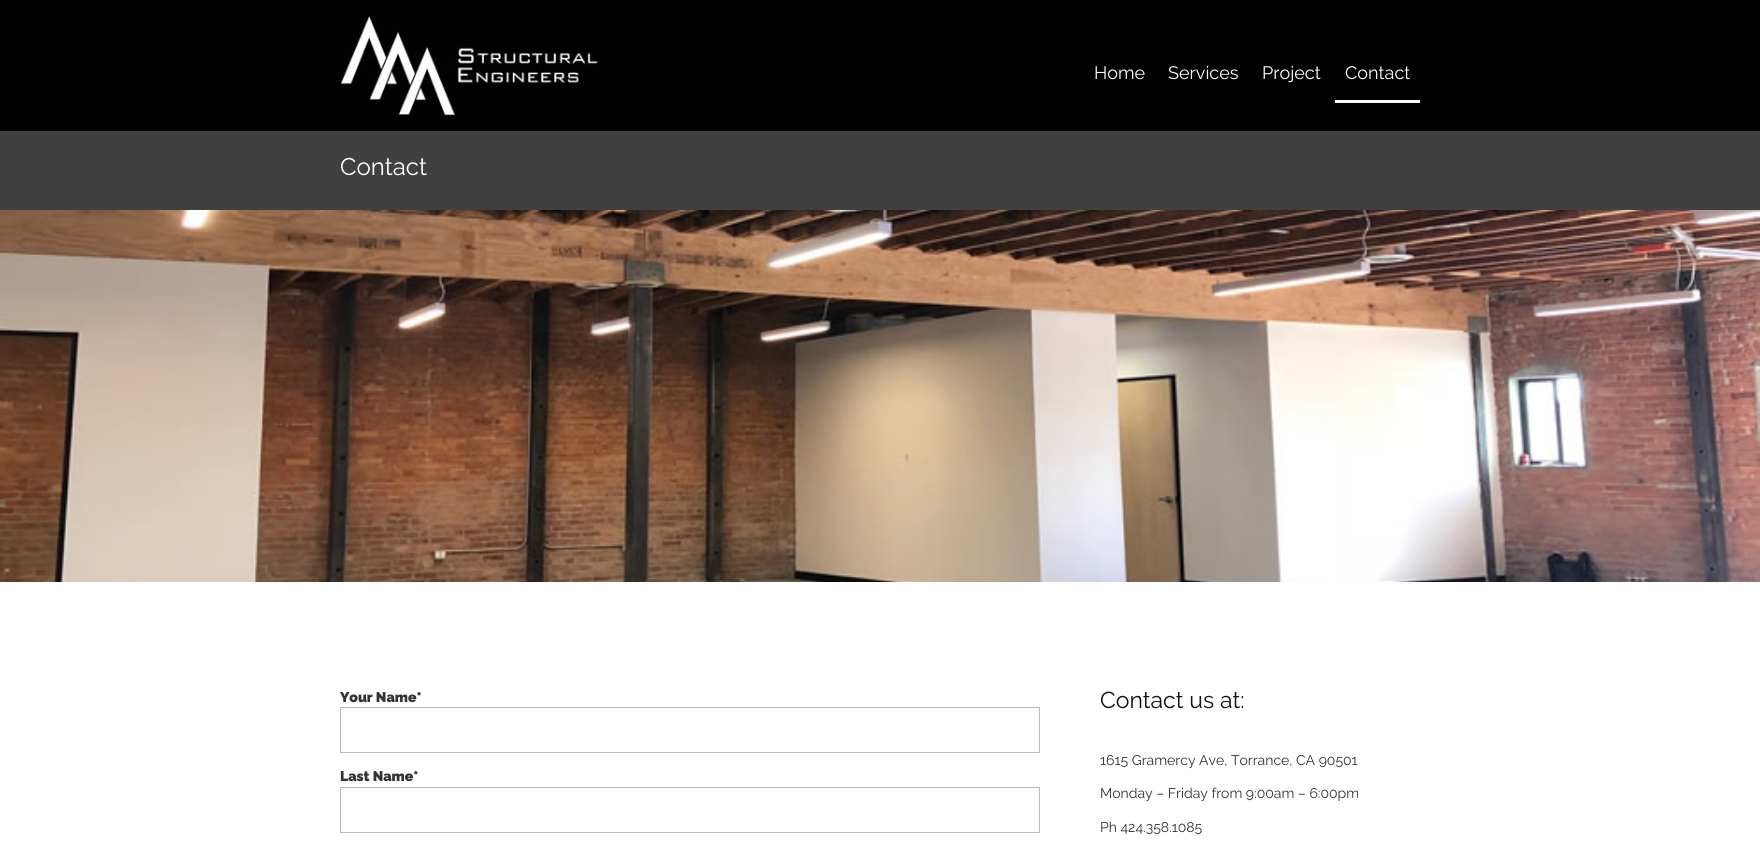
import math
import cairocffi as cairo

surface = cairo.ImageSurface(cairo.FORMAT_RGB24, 1760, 843)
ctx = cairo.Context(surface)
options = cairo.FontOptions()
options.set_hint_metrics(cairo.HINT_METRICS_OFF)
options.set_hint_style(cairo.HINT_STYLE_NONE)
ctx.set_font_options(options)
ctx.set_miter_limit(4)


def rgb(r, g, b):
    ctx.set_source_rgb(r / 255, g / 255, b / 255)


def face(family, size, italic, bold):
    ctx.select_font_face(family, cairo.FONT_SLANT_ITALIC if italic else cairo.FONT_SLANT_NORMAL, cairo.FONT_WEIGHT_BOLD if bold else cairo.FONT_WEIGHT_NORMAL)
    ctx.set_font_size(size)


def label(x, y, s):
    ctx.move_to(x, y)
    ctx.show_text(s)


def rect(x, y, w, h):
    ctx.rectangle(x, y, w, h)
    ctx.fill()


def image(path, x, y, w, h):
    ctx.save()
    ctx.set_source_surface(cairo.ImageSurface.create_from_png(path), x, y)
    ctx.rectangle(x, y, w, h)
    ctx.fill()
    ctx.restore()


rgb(255, 255, 255)
ctx.paint()
rgb(0, 2, 1)
rect(0, 0, 1760, 131)
image('image0.png', 340, 15, 260, 101)
face('Raleway', 18, 0, 0)
rgb(255, 255, 255)
label(1094, 79, 'Home')
label(1168, 79, 'Services')
label(1262, 79, 'Project')
rect(1335, 100, 85, 3)
label(1345, 79, 'Contact')
rgb(64, 64, 64)
rect(0, 131, 1760, 79)
face('Raleway', 24, 0, 0)
rgb(255, 255, 255)
label(340, 175, 'Contact')
image('image1.png', 0, 210, 1760, 372)
face('Raleway Black', 14, 0, 0)
rgb(51, 51, 51)
label(340, 702, 'Your Name*')
ctx.rectangle(340.5, 707.5, 699, 45)
rgb(187, 187, 187)
ctx.set_line_width(1)
ctx.stroke()
rgb(51, 51, 51)
label(340, 781, 'Last Name*')
ctx.rectangle(340.5, 787.5, 699, 45)
rgb(187, 187, 187)
ctx.stroke()
face('Raleway', 23, 0, 0)
rgb(21, 20, 15)
label(1100, 708, 'Contact us at:')
face('Raleway', 14, 0, 0)
rgb(51, 51, 51)
label(1100, 765, '1615 Gramercy Ave, Torrance, CA 90501')
label(1100, 798, 'Monday – Friday from 9:00am – 6:00pm')
label(1100, 832, 'Ph 424.358.1085')
surface.write_to_png('render.png')
